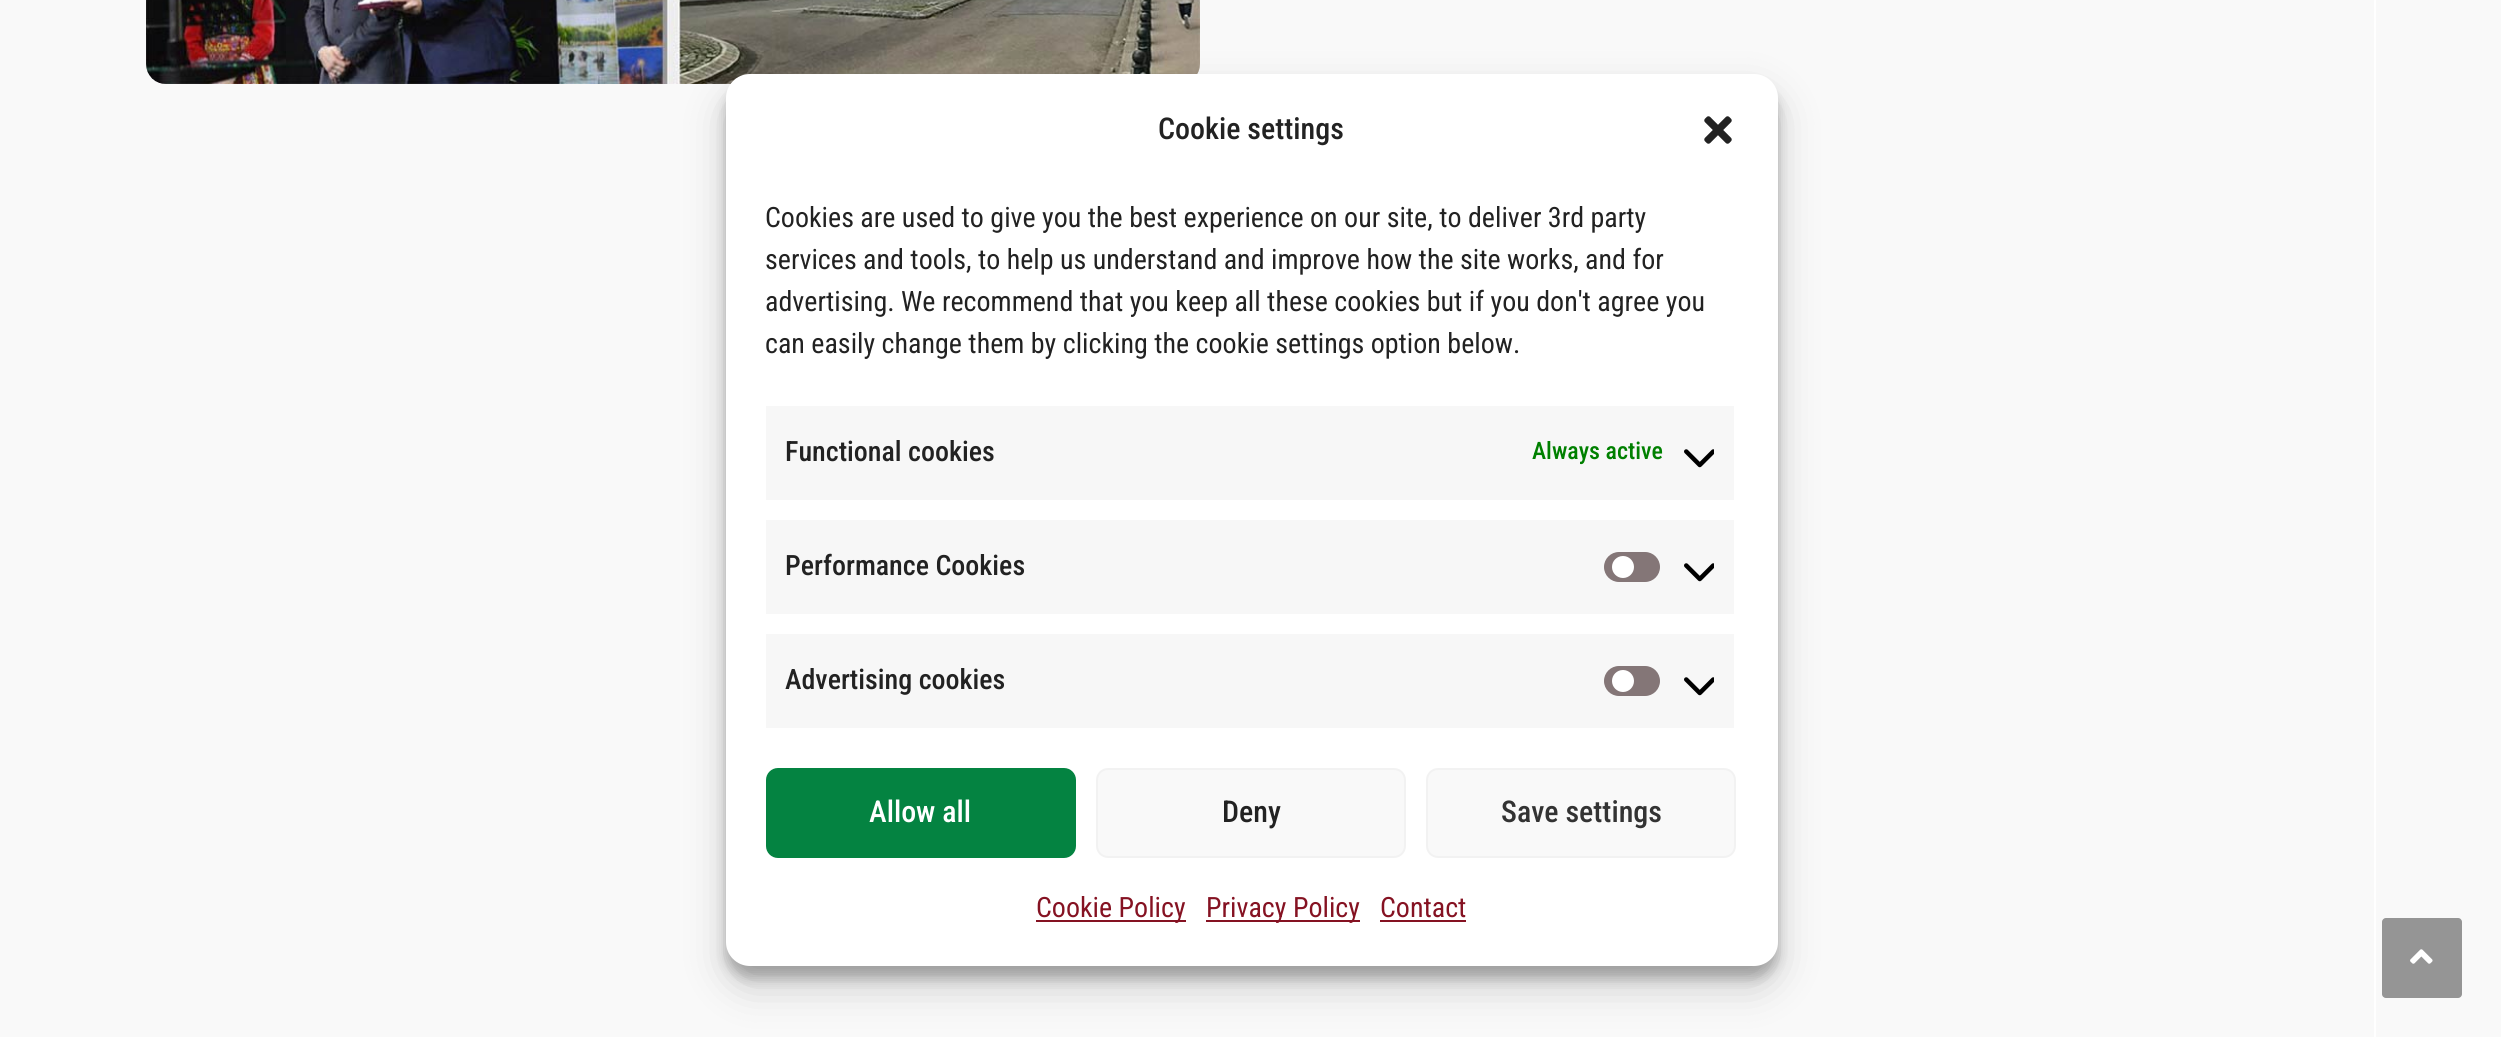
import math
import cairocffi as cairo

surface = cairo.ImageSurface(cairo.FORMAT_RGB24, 2501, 1037)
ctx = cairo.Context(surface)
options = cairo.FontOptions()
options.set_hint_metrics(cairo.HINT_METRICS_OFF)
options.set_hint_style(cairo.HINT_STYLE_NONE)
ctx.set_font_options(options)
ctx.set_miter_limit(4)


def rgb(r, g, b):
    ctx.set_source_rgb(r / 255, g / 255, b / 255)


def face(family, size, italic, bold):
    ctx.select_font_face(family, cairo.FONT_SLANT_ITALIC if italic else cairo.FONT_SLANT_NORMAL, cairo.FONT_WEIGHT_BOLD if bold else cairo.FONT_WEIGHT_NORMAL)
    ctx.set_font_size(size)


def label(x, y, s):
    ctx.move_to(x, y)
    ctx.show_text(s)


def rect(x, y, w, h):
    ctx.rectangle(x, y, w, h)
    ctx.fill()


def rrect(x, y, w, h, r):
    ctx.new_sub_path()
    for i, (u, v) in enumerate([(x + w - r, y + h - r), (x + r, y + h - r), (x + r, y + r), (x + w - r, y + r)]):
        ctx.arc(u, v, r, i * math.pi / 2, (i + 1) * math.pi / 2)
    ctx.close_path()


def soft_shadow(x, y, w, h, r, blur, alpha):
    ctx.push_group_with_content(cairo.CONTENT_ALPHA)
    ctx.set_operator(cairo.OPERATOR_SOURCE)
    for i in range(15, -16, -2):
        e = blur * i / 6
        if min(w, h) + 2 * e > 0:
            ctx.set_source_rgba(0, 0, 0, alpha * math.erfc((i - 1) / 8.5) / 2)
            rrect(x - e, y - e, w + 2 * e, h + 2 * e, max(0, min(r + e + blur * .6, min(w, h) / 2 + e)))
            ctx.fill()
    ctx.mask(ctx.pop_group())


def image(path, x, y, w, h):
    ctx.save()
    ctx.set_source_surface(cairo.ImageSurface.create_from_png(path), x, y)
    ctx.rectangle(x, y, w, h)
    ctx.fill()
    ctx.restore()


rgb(249, 249, 249)
ctx.paint()
rgb(255, 255, 255)
rect(2374, 0, 2, 1037)
image('image0.png', 146, 0, 1054, 84)
rgb(0, 0, 0)
soft_shadow(726, 86, 1052, 892, 24, 6, 0.23)
soft_shadow(726, 94, 1052, 892, 24, 20, 0.19)
rgb(255, 255, 255)
rrect(726, 74, 1052, 892, 24)
ctx.fill()
face('Roboto Condensed Medium', 30, 0, 0)
rgb(34, 34, 34)
label(1158, 139, 'Cookie settings')
image('image1.png', 1704, 116, 28, 28)
face('Roboto Condensed', 28, 0, 0)
label(765, 227, 'Cookies are used to give you the best experience on our site, to deliver 3rd party')
label(765, 269, 'services and tools, to help us understand and improve how the site works, and for')
label(765, 311, 'advertising. We recommend that you keep all these cookies but if you don\'t agree you')
label(765, 353, 'can easily change them by clicking the cookie settings option below.')
rgb(247, 247, 247)
rect(766, 406, 968, 94)
face('Roboto Condensed Medium', 28, 0, 0)
rgb(34, 34, 34)
label(785, 461, 'Functional cookies')
face('Roboto Condensed Medium', 24, 0, 0)
rgb(0, 128, 0)
label(1532, 459, 'Always active')
image('image2.png', 1684, 449, 30, 19)
rgb(247, 247, 247)
rect(766, 520, 968, 94)
face('Roboto Condensed Medium', 28, 0, 0)
rgb(34, 34, 34)
label(785, 575, 'Performance Cookies')
rgb(132, 118, 119)
rrect(1604, 552, 56, 30, 15)
ctx.fill()
rgb(255, 255, 255)
ctx.arc(1623, 567, 11, 0, 2 * math.pi)
ctx.fill()
image('image2.png', 1684, 563, 30, 19)
rgb(247, 247, 247)
rect(766, 634, 968, 94)
rgb(34, 34, 34)
label(785, 689, 'Advertising cookies')
rgb(132, 118, 119)
rrect(1604, 666, 56, 30, 15)
ctx.fill()
rgb(255, 255, 255)
ctx.arc(1623, 681, 11, 0, 2 * math.pi)
ctx.fill()
image('image2.png', 1684, 677, 30, 19)
rgb(4, 131, 65)
rrect(767, 769, 308, 88, 11)
ctx.fill_preserve()
ctx.stroke()
face('Roboto Condensed Medium', 30, 0, 0)
rgb(255, 255, 255)
label(869, 822, 'Allow all')
rgb(249, 249, 249)
rrect(1097, 769, 308, 88, 11)
ctx.fill_preserve()
rgb(242, 242, 242)
ctx.stroke()
rgb(34, 34, 34)
label(1222, 822, 'Deny')
rgb(249, 249, 249)
rrect(1427, 769, 308, 88, 11)
ctx.fill_preserve()
rgb(242, 242, 242)
ctx.stroke()
rgb(51, 51, 51)
label(1501, 822, 'Save settings')
rgb(133, 18, 34)
rect(1036, 920, 150, 2)
face('Roboto Condensed', 28, 0, 0)
label(1036, 917, 'Cookie Policy')
rect(1206, 920, 154, 2)
label(1206, 917, 'Privacy Policy')
label(1380, 917, 'Contact')
rect(1380, 920, 86, 2)
rgb(149, 149, 149)
rrect(2382, 918, 80, 80, 4)
ctx.fill()
image('image3.png', 2410, 949, 23, 15)
surface.write_to_png('render.png')
